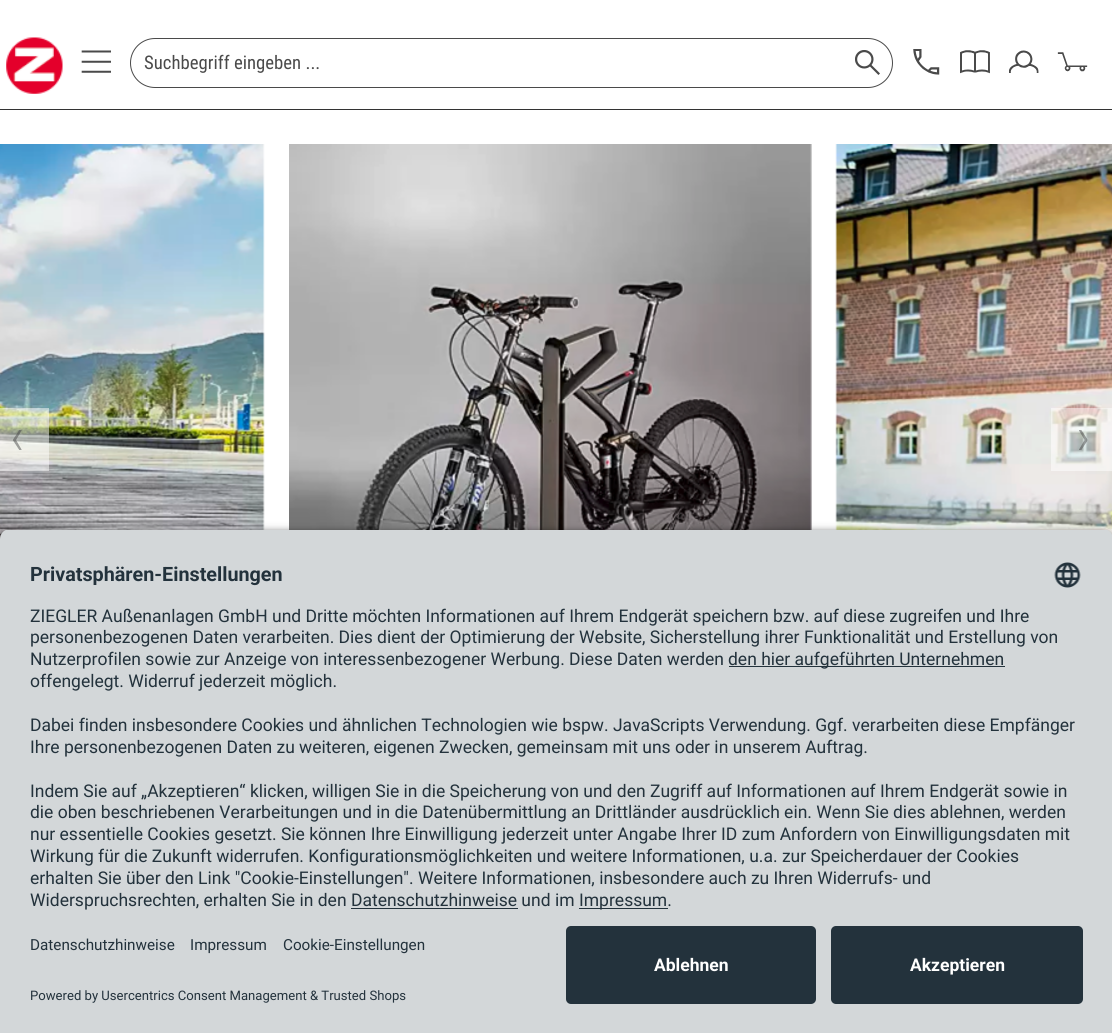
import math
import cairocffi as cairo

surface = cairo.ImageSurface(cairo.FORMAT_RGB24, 1112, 1033)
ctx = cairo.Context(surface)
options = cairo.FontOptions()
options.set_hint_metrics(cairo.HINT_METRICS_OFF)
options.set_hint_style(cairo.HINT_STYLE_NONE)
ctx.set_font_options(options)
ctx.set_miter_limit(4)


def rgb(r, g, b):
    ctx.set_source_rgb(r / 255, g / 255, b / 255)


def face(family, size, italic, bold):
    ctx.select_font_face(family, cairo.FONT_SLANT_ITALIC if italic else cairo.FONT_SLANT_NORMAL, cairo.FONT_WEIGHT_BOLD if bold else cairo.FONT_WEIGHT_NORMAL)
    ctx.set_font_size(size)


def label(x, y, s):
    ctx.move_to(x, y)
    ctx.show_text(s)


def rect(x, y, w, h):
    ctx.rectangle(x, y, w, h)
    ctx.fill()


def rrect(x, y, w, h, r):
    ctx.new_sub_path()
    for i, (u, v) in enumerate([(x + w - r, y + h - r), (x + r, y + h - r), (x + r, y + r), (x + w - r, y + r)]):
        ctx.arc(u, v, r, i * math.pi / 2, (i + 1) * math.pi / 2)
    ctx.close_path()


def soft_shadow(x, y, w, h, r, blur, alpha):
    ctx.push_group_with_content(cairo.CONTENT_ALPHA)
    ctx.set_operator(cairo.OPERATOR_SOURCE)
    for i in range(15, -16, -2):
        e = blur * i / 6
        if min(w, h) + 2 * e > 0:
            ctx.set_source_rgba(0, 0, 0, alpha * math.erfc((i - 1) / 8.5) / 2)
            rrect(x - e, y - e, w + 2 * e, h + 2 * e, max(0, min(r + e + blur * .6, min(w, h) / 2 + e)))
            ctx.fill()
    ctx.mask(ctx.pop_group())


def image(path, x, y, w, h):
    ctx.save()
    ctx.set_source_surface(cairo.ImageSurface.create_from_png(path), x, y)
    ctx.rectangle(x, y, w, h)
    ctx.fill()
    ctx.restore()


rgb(255, 255, 255)
ctx.paint()
rgb(51, 51, 51)
rect(0, 109, 1112, 1)
image('image0.png', 6, 37, 57, 57)
image('image1.png', 81, 50, 30, 23)
rrect(130.5, 38.5, 762, 49, 24.5)
rgb(74, 74, 74)
ctx.set_line_width(1)
ctx.stroke()
face('Roboto Condensed', 18.75, 0, 0)
label(144, 69, 'Suchbegriff eingeben ...')
image('image2.png', 855, 50, 25, 25)
image('image3.png', 913, 49, 27, 26)
image('image4.png', 960, 50, 30, 24)
image('image5.png', 1009, 50, 30, 23)
image('image6.png', 1057, 52, 31, 20)
image('image7.png', 0, 144, 265, 395)
image('image8.png', 289, 144, 523, 386)
image('image9.png', 835, 144, 277, 391)
ctx.set_source_rgba(1, 1, 1, 0.5)
rect(0, 408, 49, 63)
image('image10.png', 13, 430, 9, 20)
rect(1051, 408, 61, 63)
image('image11.png', 1079, 430, 9, 20)
rgb(0, 0, 0)
soft_shadow(0, 533, 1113, 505, 10, 4.5, 0.8)
ctx.save()
ctx.new_path()
ctx.move_to(10, 529)
ctx.line_to(1103, 529)
ctx.curve_to(1108.5, 529, 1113, 533.5, 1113, 539)
ctx.line_to(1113, 916)
ctx.line_to(0, 916)
ctx.line_to(0, 539)
ctx.curve_to(0, 533.5, 4.5, 529, 10, 529)
ctx.close_path()
ctx.clip()
rgb(211, 215, 217)
rect(0, 530, 1112, 386)
ctx.restore()
face('Roboto', 19.75, 0, 1)
rgb(35, 50, 60)
label(30, 581, 'Privatsphären-Einstellungen')
image('image12.png', 1054, 562, 27, 26)
face('Roboto', 17.5, 0, 0)
label(30, 622, 'ZIEGLER Außenanlagen GmbH und Dritte möchten Informationen auf Ihrem Endgerät speichern bzw. auf diese zugreifen und Ihre')
label(30, 643, 'personenbezogenen Daten verarbeiten. Dies dient der Optimierung der Website, Sicherstellung ihrer Funktionalität und Erstellung von')
label(30, 665, 'Nutzerprofilen sowie zur Anzeige von interessenbezogener Werbung. Diese Daten werden')
rect(729, 666, 276, 1)
label(728, 665, 'den hier aufgeführten Unternehmen')
label(30, 687, 'offengelegt. Widerruf jederzeit möglich.')
label(30, 731, 'Dabei finden insbesondere Cookies und ähnlichen Technologien wie bspw. JavaScripts Verwendung. Ggf. verarbeiten diese Empfänger')
label(30, 753, 'Ihre personenbezogenen Daten zu weiteren, eigenen Zwecken, gemeinsam mit uns oder in unserem Auftrag.')
label(30, 797, 'Indem Sie auf „Akzeptieren“ klicken, willigen Sie in die Speicherung von und den Zugriff auf Informationen auf Ihrem Endgerät sowie in')
label(30, 818, 'die oben beschriebenen Verarbeitungen und in die Datenübermittlung an Drittländer ausdrücklich ein. Wenn Sie dies ablehnen, werden')
label(30, 840, 'nur essentielle Cookies gesetzt. Sie können Ihre Einwilligung jederzeit unter Angabe Ihrer ID zum Anfordern von Einwilligungsdaten mit')
label(30, 862, 'Wirkung für die Zukunft widerrufen. Konfigurationsmöglichkeiten und weitere Informationen, u.a. zur Speicherdauer der Cookies')
label(30, 884, 'erhalten Sie über den Link "Cookie-Einstellungen". Weitere Informationen, insbesondere auch zu Ihren Widerrufs- und')
label(30, 906, 'Widerspruchsrechten, erhalten Sie in den Datenschutzhinweise und im')
rect(351, 908, 167, 1)
rect(579, 908, 89, 1)
label(579, 906, 'Impressum.')
rgb(211, 215, 217)
rect(0, 916, 1112, 117)
face('Roboto', 15.25, 0, 0)
rgb(35, 50, 60)
label(30, 950, 'Datenschutzhinweise')
label(190, 950, 'Impressum')
label(283, 950, 'Cookie-Einstellungen')
face('Roboto', 13.1, 0, 0)
label(30, 1000, 'Powered by Usercentrics Consent Management & Trusted Shops')
rrect(566, 926, 250, 78, 5)
ctx.fill()
face('Roboto', 17.5, 0, 1)
rgb(255, 255, 255)
label(654, 971, 'Ablehnen')
rgb(35, 50, 60)
rrect(831, 926, 252, 78, 5)
ctx.fill()
rgb(255, 255, 255)
label(910, 971, 'Akzeptieren')
surface.write_to_png('render.png')
